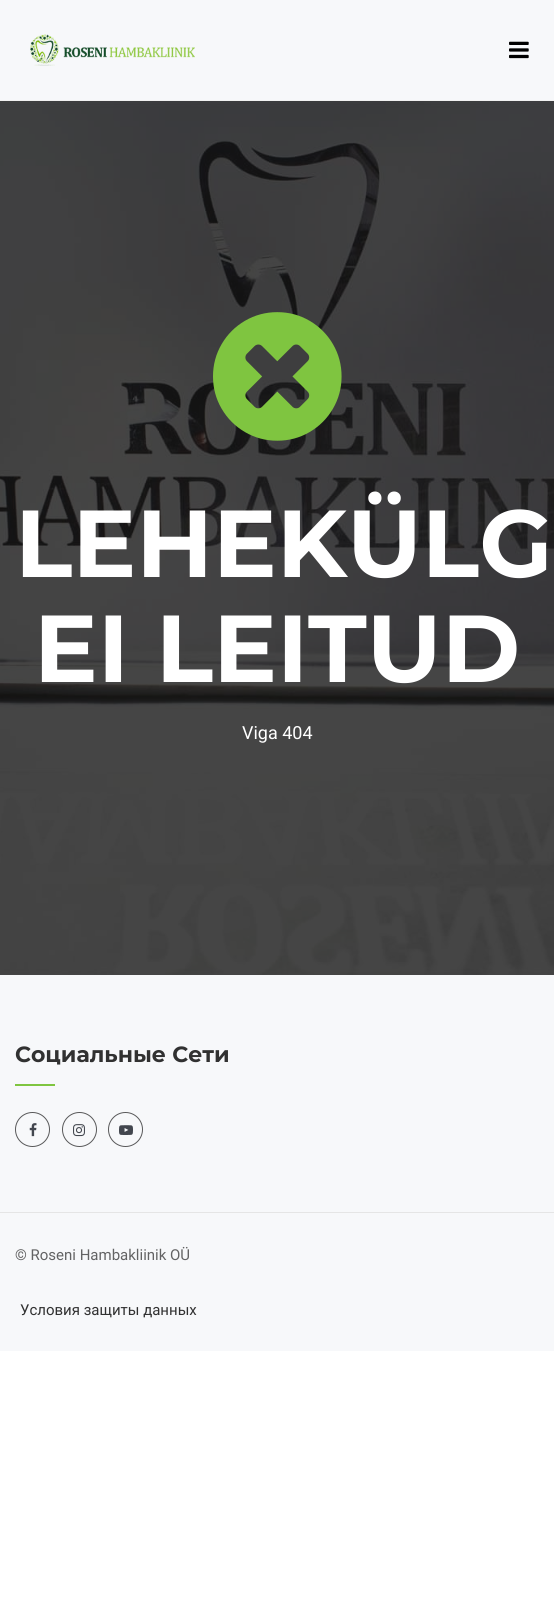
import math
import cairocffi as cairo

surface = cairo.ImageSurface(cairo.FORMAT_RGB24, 554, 1607)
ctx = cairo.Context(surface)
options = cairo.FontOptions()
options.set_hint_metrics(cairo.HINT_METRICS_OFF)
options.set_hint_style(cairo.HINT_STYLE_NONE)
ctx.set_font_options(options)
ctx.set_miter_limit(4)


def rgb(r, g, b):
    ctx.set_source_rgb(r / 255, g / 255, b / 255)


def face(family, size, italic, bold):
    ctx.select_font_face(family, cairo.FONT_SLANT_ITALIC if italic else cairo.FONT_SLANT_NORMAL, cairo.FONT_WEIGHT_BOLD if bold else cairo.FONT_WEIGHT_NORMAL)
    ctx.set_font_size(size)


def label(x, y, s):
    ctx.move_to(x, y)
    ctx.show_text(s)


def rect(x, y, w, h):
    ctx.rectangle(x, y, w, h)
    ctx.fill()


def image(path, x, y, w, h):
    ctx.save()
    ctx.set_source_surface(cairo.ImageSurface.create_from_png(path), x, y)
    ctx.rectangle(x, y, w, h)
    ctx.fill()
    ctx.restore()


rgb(255, 255, 255)
ctx.paint()
rgb(247, 248, 250)
rect(0, 0, 554, 100)
image('image0.png', 30, 34, 165, 32)
image('image1.png', 509, 41, 20, 18)
rgb(242, 242, 242)
rect(0, 100, 554, 1)
image('image2.png', 0, 101, 554, 874)
image('image3.png', 213, 312, 129, 129)
face('Montserrat', 95, 0, 1)
rgb(255, 255, 255)
label(15, 577, 'LEHEKÜLG')
label(34, 682, 'EI LEITUD')
face('Roboto', 18, 0, 0)
label(242, 739, 'Viga 404')
rgb(247, 248, 250)
rect(0, 975, 554, 376)
rgb(229, 229, 229)
rect(0, 1212, 554, 1)
face('Montserrat', 22, 0, 1)
rgb(49, 49, 49)
label(15, 1062, 'Cоциальные Сети')
rgb(127, 197, 64)
rect(15, 1084, 40, 2)
ctx.new_path()
ctx.arc(32.5, 1129.5, 17, 0, 2 * math.pi)
rgb(89, 89, 90)
ctx.set_line_width(1)
ctx.stroke()
image('image4.png', 29, 1123, 8, 14)
ctx.arc(79.5, 1129.5, 17, 0, 2 * math.pi)
ctx.stroke()
image('image5.png', 73, 1124, 12, 13)
ctx.arc(125.5, 1129.5, 17, 0, 2 * math.pi)
ctx.stroke()
image('image6.png', 119, 1125, 14, 10)
face('Roboto', 15, 0, 0)
rgb(99, 99, 100)
label(15, 1260, '© Roseni Hambakliinik OÜ')
rgb(49, 49, 49)
label(20, 1315, 'Условия защиты данных')
surface.write_to_png('render.png')
